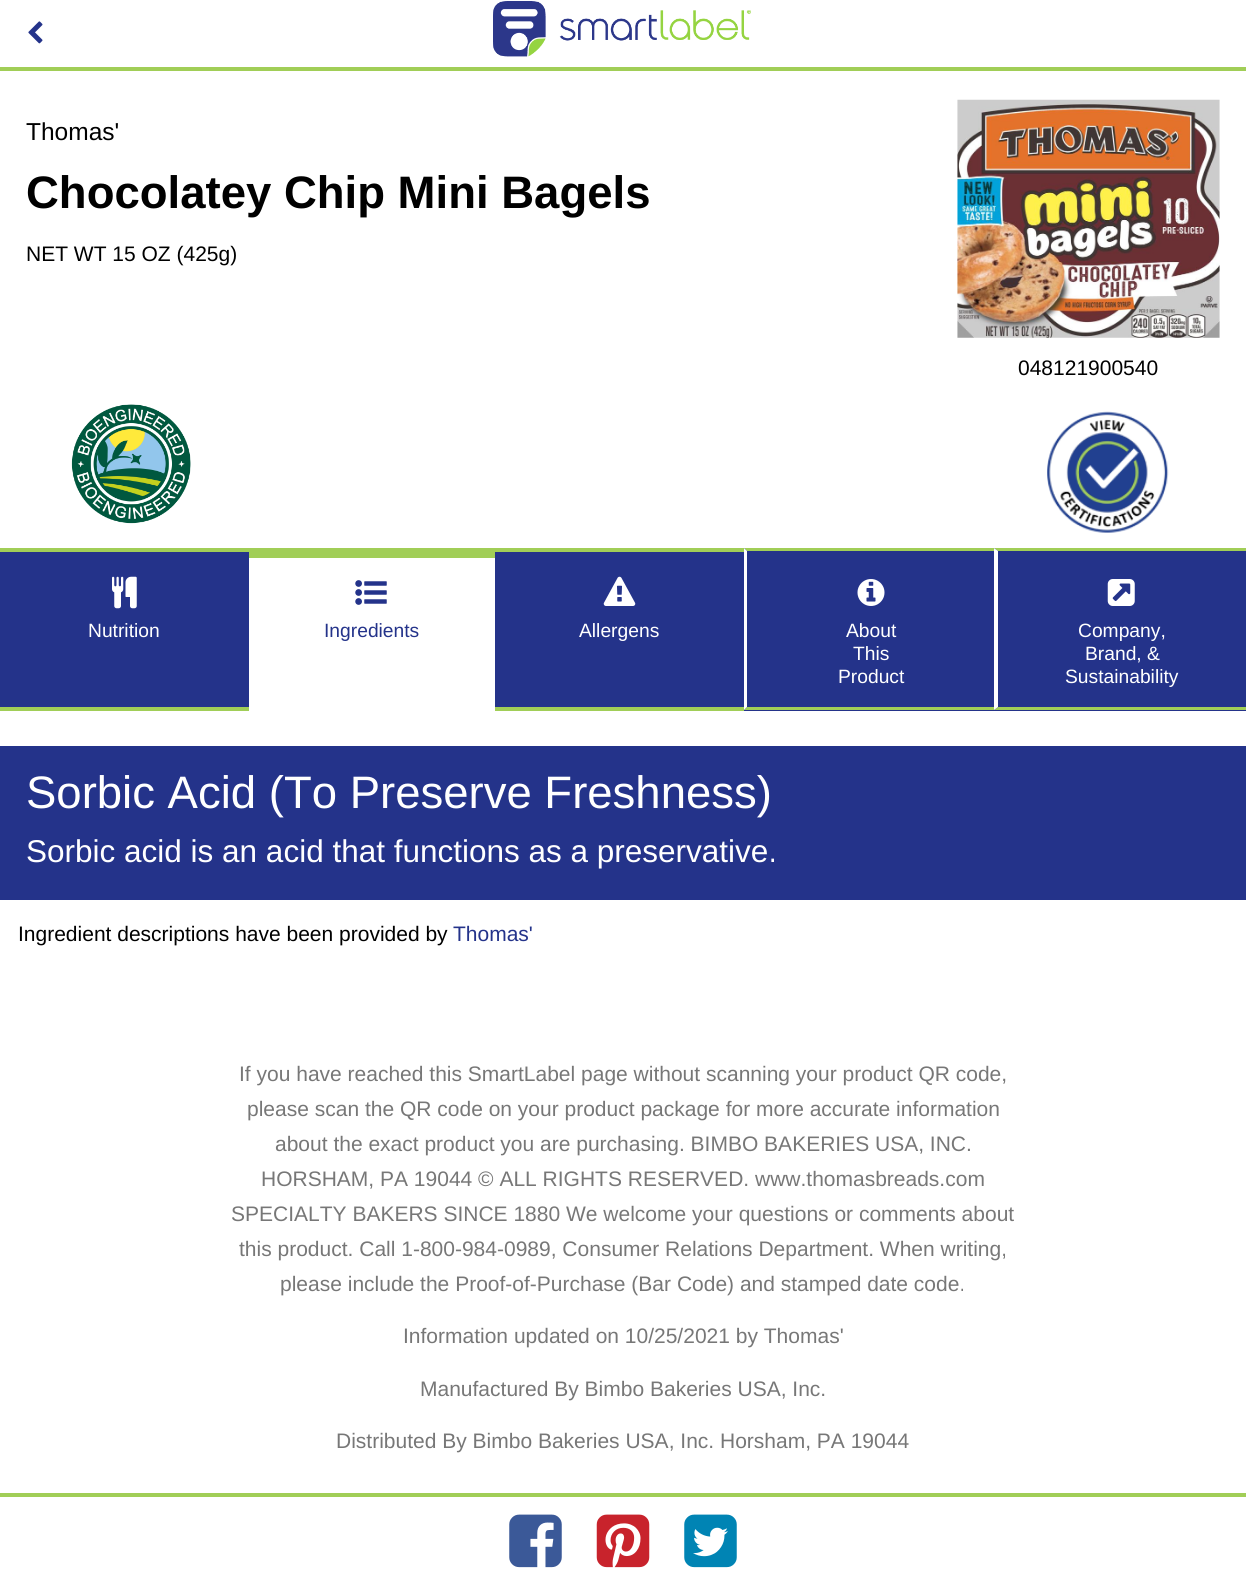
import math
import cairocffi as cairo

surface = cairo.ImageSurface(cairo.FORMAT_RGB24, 1246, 1584)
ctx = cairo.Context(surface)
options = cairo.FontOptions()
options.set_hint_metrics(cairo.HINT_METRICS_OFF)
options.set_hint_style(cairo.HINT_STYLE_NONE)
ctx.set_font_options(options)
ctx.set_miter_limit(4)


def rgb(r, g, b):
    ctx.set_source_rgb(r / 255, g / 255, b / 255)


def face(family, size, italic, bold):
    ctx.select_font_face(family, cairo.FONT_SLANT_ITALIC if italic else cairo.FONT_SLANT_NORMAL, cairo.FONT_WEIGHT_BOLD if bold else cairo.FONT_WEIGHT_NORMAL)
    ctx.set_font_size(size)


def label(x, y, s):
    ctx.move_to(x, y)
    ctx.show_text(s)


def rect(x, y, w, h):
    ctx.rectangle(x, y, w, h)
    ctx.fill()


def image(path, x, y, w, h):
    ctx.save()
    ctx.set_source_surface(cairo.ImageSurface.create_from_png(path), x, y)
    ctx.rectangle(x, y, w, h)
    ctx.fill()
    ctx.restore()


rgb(255, 255, 255)
ctx.paint()
rgb(161, 206, 87)
rect(0, 67, 1246, 4)
image('image0.png', 28, 21, 15, 23)
image('image1.png', 493, 1, 258, 56)
face('Liberation Sans', 24.5, 0, 0)
rgb(0, 0, 0)
label(26, 140, 'Thomas\'')
face('Liberation Sans', 45.5, 0, 1)
label(26, 208, 'Chocolatey Chip Mini Bagels')
face('Liberation Sans', 21, 0, 0)
label(26, 261, 'NET WT 15 OZ (425g)')
image('image2.png', 957, 99, 263, 239)
label(1018, 375, '048121900540')
image('image3.png', 71, 404, 120, 120)
image('image4.png', 1047, 411, 122, 122)
rgb(36, 51, 138)
rect(0, 552, 249, 155)
rgb(161, 206, 87)
rect(0, 548, 249, 4)
rect(0, 707, 249, 4)
image('image5.png', 112, 576, 25, 33)
face('Liberation Sans', 19.25, 0, 0)
rgb(255, 255, 255)
label(88, 637, 'Nutrition')
rgb(161, 206, 87)
rect(249, 548, 246, 10)
image('image6.png', 355, 580, 32, 25)
rgb(36, 51, 138)
label(324, 637, 'Ingredients')
rect(495, 552, 249, 155)
rgb(161, 206, 87)
rect(495, 548, 249, 4)
rect(495, 707, 249, 4)
image('image7.png', 603, 576, 33, 30)
rgb(255, 255, 255)
label(579, 637, 'Allergens')
rgb(36, 51, 138)
rect(744, 548, 502, 163)
rgb(161, 206, 87)
ctx.new_path()
ctx.move_to(744, 548)
ctx.line_to(994, 548)
ctx.line_to(994, 551)
ctx.line_to(747, 551)
ctx.close_path()
ctx.fill()
ctx.new_path()
ctx.move_to(994, 710)
ctx.line_to(744, 710)
ctx.line_to(747, 707)
ctx.line_to(994, 707)
ctx.close_path()
ctx.fill()
rgb(255, 255, 255)
ctx.new_path()
ctx.move_to(744, 710)
ctx.line_to(744, 548)
ctx.line_to(747, 551)
ctx.line_to(747, 707)
ctx.close_path()
ctx.fill()
image('image8.png', 857, 579, 28, 27)
label(846, 637, 'About')
label(853, 660, 'This')
label(838, 683, 'Product')
rgb(161, 206, 87)
ctx.new_path()
ctx.move_to(994, 548)
ctx.line_to(1246, 548)
ctx.line_to(1246, 551)
ctx.line_to(998, 551)
ctx.close_path()
ctx.fill()
ctx.new_path()
ctx.move_to(1246, 710)
ctx.line_to(994, 710)
ctx.line_to(998, 707)
ctx.line_to(1246, 707)
ctx.close_path()
ctx.fill()
rgb(255, 255, 255)
ctx.new_path()
ctx.move_to(994, 710)
ctx.line_to(994, 548)
ctx.line_to(998, 551)
ctx.line_to(998, 707)
ctx.close_path()
ctx.fill()
image('image9.png', 1107, 579, 28, 27)
label(1078, 637, 'Company,')
label(1085, 660, 'Brand, &')
label(1065, 683, 'Sustainability')
rgb(36, 51, 138)
rect(0, 746, 1246, 154)
face('Liberation Sans', 45.5, 0, 0)
rgb(255, 255, 255)
label(26, 808, 'Sorbic Acid (To Preserve Freshness)')
face('Liberation Sans', 31.5, 0, 0)
label(26, 862, 'Sorbic acid is an acid that functions as a preservative.')
face('Liberation Sans', 21, 0, 0)
rgb(0, 0, 0)
label(18, 941, 'Ingredient descriptions have been provided by')
rgb(36, 51, 138)
label(453, 941, 'Thomas\'')
rgb(119, 119, 119)
label(239, 1081, 'If you have reached this SmartLabel page without scanning your product QR code,')
label(247, 1116, 'please scan the QR code on your product package for more accurate information')
label(275, 1151, 'about the exact product you are purchasing. BIMBO BAKERIES USA, INC.')
label(261, 1186, 'HORSHAM, PA 19044 © ALL RIGHTS RESERVED. www.thomasbreads.com')
label(231, 1221, 'SPECIALTY BAKERS SINCE 1880 We welcome your questions or comments about')
label(239, 1256, 'this product. Call 1-800-984-0989, Consumer Relations Department. When writing,')
label(280, 1291, 'please include the Proof-of-Purchase (Bar Code) and stamped date code.')
label(403, 1343, 'Information updated on 10/25/2021 by Thomas\'')
label(420, 1396, 'Manufactured By Bimbo Bakeries USA, Inc.')
label(336, 1448, 'Distributed By Bimbo Bakeries USA, Inc. Horsham, PA 19044')
rgb(161, 206, 87)
rect(0, 1493, 1246, 4)
image('image10.png', 509, 1514, 53, 54)
image('image11.png', 596, 1514, 54, 54)
image('image12.png', 684, 1514, 53, 54)
surface.write_to_png('render.png')
